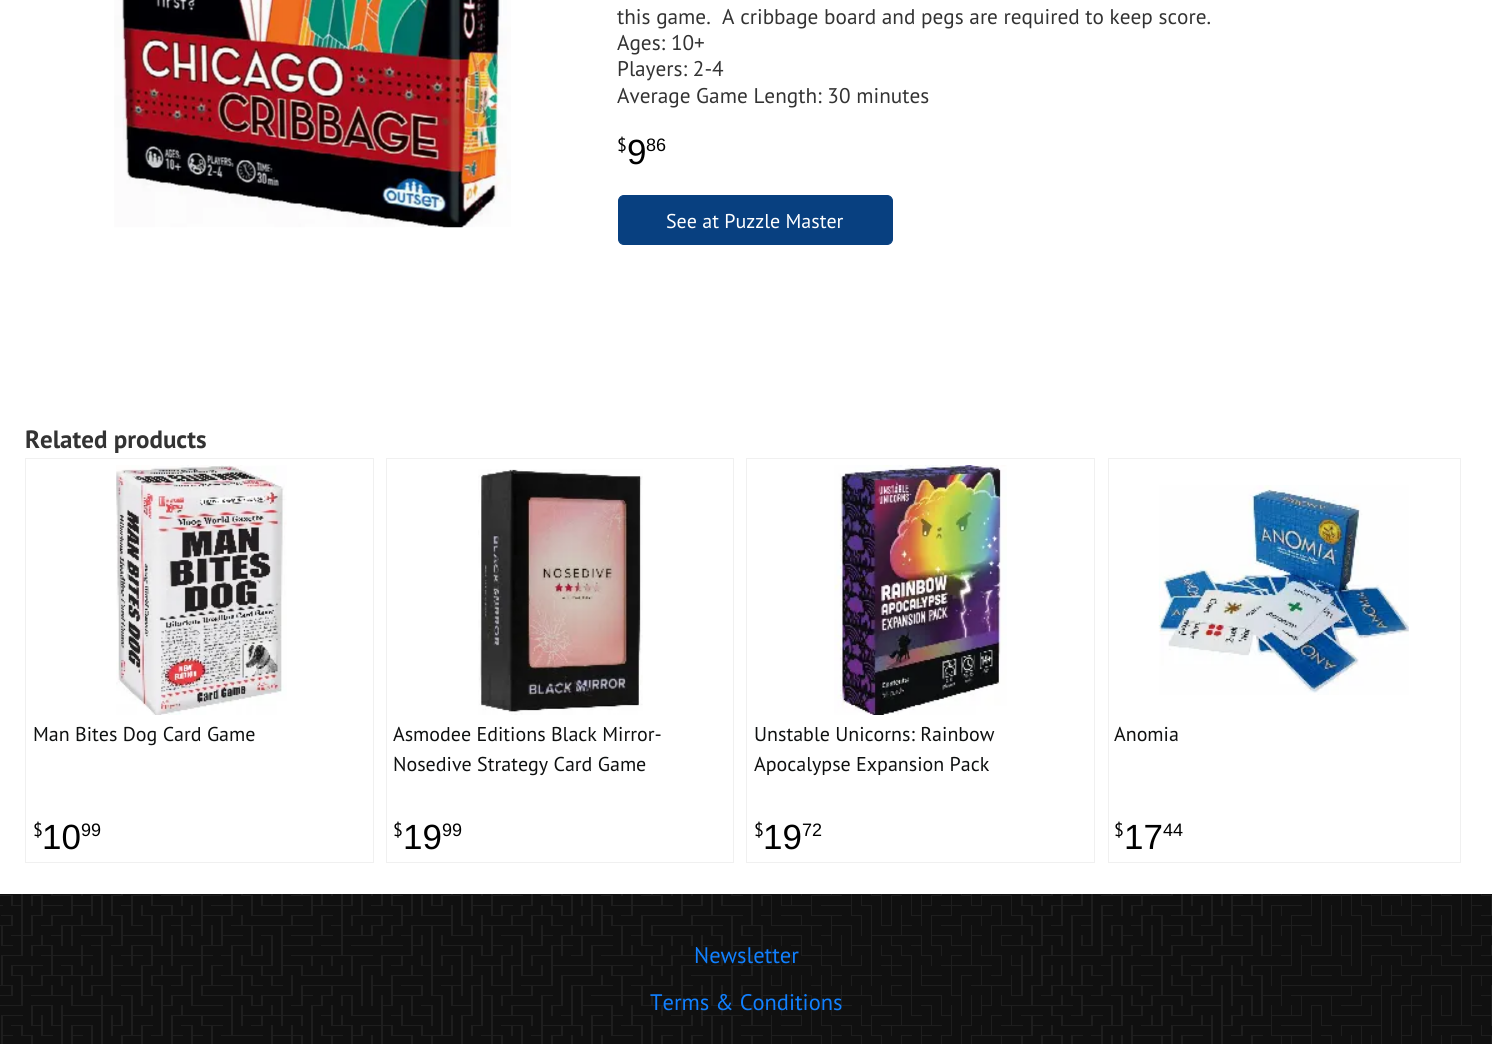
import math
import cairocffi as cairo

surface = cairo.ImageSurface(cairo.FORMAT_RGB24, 1492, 1044)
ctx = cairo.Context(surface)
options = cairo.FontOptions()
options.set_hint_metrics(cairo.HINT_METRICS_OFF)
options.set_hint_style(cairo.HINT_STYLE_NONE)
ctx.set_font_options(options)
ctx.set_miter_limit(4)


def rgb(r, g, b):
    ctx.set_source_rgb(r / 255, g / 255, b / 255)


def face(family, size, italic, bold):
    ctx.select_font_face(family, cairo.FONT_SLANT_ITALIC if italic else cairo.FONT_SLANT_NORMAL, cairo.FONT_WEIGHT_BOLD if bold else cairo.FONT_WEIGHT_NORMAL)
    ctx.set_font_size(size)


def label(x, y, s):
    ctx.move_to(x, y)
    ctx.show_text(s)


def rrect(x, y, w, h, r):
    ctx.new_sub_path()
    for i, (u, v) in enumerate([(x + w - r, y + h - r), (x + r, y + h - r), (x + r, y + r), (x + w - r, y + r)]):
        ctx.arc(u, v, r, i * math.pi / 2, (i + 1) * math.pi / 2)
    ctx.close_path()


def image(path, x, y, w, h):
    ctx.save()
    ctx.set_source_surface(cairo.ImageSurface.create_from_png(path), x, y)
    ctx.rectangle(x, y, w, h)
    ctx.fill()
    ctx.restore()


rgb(255, 255, 255)
ctx.paint()
image('image0.png', 0, 894, 1492, 150)
image('image1.png', 114, 0, 397, 228)
face('PT Sans', 21.25, 0, 0)
rgb(51, 51, 51)
label(617, 24, 'this game.  A cribbage board and pegs are required to keep score.')
label(617, 50, 'Ages: 10+')
label(617, 76, 'Players: 2-4')
label(617, 103, 'Average Game Length: 30 minutes')
face('PT Sans', 18, 0, 0)
rgb(0, 0, 0)
label(617, 151, '$')
face('Liberation Sans', 35, 0, 0)
label(627, 164, '9')
face('Liberation Sans', 18, 0, 0)
label(646, 151, '86')
rgb(8, 64, 128)
rrect(618.5, 195.5, 274, 49, 5.5)
ctx.fill_preserve()
ctx.set_line_width(1)
ctx.stroke()
face('PT Sans', 20, 0, 0)
rgb(255, 255, 255)
label(666, 228, 'See at Puzzle Master')
face('PT Sans', 25, 0, 1)
rgb(51, 51, 51)
label(25, 448, 'Related products')
ctx.rectangle(25.5, 458.5, 348, 404)
rgb(240, 240, 240)
ctx.stroke()
image('image2.png', 116, 465, 171, 250)
face('PT Sans', 20, 0, 0)
rgb(15, 17, 17)
label(33, 741, 'Man Bites Dog Card Game')
face('PT Sans', 18, 0, 0)
rgb(0, 0, 0)
label(33, 836, '$')
face('Liberation Sans', 35, 0, 0)
label(42, 849, '10')
face('Liberation Sans', 18, 0, 0)
label(81, 836, '99')
ctx.rectangle(386.5, 458.5, 347, 404)
rgb(240, 240, 240)
ctx.stroke()
image('image3.png', 478, 469, 165, 246)
face('PT Sans', 20, 0, 0)
rgb(15, 17, 17)
label(393, 741, 'Asmodee Editions Black Mirror-')
label(393, 771, 'Nosedive Strategy Card Game')
face('PT Sans', 18, 0, 0)
rgb(0, 0, 0)
label(393, 836, '$')
face('Liberation Sans', 35, 0, 0)
label(403, 849, '19')
face('Liberation Sans', 18, 0, 0)
label(442, 836, '99')
ctx.rectangle(746.5, 458.5, 348, 404)
rgb(240, 240, 240)
ctx.stroke()
image('image4.png', 834, 465, 173, 250)
face('PT Sans', 20, 0, 0)
rgb(15, 17, 17)
label(754, 741, 'Unstable Unicorns: Rainbow')
label(754, 771, 'Apocalypse Expansion Pack')
face('PT Sans', 18, 0, 0)
rgb(0, 0, 0)
label(754, 836, '$')
face('Liberation Sans', 35, 0, 0)
label(763, 849, '19')
face('Liberation Sans', 18, 0, 0)
label(802, 836, '72')
ctx.rectangle(1108.5, 458.5, 352, 404)
rgb(240, 240, 240)
ctx.stroke()
image('image5.png', 1158, 485, 251, 210)
face('PT Sans', 20, 0, 0)
rgb(15, 17, 17)
label(1114, 741, 'Anomia')
face('PT Sans', 18, 0, 0)
rgb(0, 0, 0)
label(1114, 836, '$')
face('Liberation Sans', 35, 0, 0)
label(1124, 849, '17')
face('Liberation Sans', 18, 0, 0)
label(1163, 836, '44')
face('PT Sans', 22.5, 0, 0)
rgb(16, 128, 255)
label(694, 963, 'Newsletter')
label(650, 1010, 'Terms & Conditions')
surface.write_to_png('render.png')
